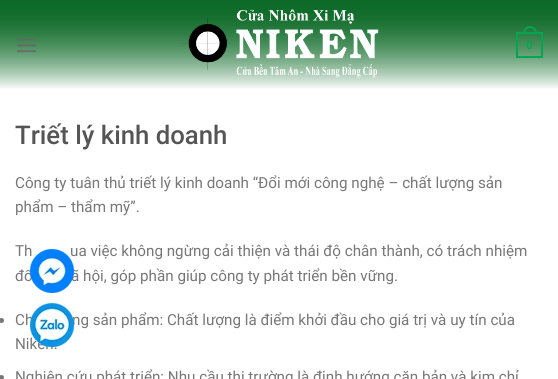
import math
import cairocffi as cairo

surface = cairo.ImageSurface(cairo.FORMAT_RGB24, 558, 379)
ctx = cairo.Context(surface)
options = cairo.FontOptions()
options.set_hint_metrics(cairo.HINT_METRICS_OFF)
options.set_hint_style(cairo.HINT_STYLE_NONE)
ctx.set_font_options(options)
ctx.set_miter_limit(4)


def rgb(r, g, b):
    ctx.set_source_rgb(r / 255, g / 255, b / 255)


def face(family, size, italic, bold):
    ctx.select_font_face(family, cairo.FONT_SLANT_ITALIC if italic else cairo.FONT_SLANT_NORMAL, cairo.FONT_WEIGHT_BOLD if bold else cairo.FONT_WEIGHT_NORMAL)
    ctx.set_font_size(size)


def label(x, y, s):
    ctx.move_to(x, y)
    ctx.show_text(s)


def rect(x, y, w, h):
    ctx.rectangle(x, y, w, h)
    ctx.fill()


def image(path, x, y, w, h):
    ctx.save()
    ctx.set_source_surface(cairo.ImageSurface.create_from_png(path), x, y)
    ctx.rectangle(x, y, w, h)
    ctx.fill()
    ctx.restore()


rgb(255, 255, 255)
ctx.paint()
gradient = cairo.LinearGradient(279, 0, 279, 90)
gradient.add_color_stop_rgba(0, 0.051, 0.416, 0.153, 1)
gradient.add_color_stop_rgba(1, 1, 1, 1, 1)
ctx.set_source(gradient)
rect(0, 1, 558, 88)
gradient = cairo.LinearGradient(279, 0, 279, 90)
gradient.add_color_stop_rgba(0, 0.051, 0.416, 0.153, 1)
gradient.add_color_stop_rgba(1, 0.051, 0.416, 0.153, 0)
ctx.set_source(gradient)
rect(0, 0, 558, 88)
image('image0.png', 17, 38, 20, 15)
image('image1.png', 181, 9, 198, 69)
ctx.rectangle(517, 33, 25, 24)
rgb(0, 166, 81)
ctx.stroke()
ctx.set_fill_rule(cairo.FILL_RULE_EVEN_ODD)
ctx.new_path()
ctx.move_to(530, 26)
ctx.curve_to(534.5, 26, 537, 30, 537, 34)
ctx.line_to(523, 34)
ctx.curve_to(523, 30, 525.5, 26, 530, 26)
ctx.close_path()
ctx.move_to(530, 28)
ctx.curve_to(533.5, 28, 535, 31, 535, 34)
ctx.line_to(525, 34)
ctx.curve_to(525, 31, 526.5, 28, 530, 28)
ctx.close_path()
ctx.fill()
face('Liberation Sans', 12, 0, 1)
label(526, 49, '0')
face('Roboto Medium', 25.75, 0, 0)
rgb(85, 85, 85)
label(15, 144, 'Triết lý kinh doanh')
face('Roboto', 15.2, 0, 0)
rgb(119, 119, 119)
label(15, 188, 'Công ty tuân thủ triết lý kinh doanh “Đổi mới công nghệ – chất lượng sản')
label(15, 212, 'phẩm – thẩm mỹ”.')
label(15, 256, 'Th')
label(70, 256, 'ua việc không ngừng cải thiện và thái độ chân thành, có trách nhiệm')
label(15, 281, 'đố')
label(71, 281, 'ã hội, góp phần giúp công ty phát triển bền vững.')
ctx.new_path()
ctx.arc(1.5, 320.5, 2.5, 0, 2 * math.pi)
ctx.fill()
label(15, 325, 'Ch')
label(72, 325, 'ng sản phẩm: Chất lượng là điểm khởi đầu cho giá trị và uy tín của')
label(15, 349, 'Niken.')
ctx.new_path()
ctx.arc(1.5, 377.5, 2.5, 0, 2 * math.pi)
ctx.fill()
label(15, 382, 'Nghiên cứu phát triển: Nhu cầu thị trường là định hướng căn bản và kim chỉ')
image('image2.png', 30, 249, 44, 44)
image('image3.png', 30, 303, 44, 44)
surface.write_to_png('render.png')
